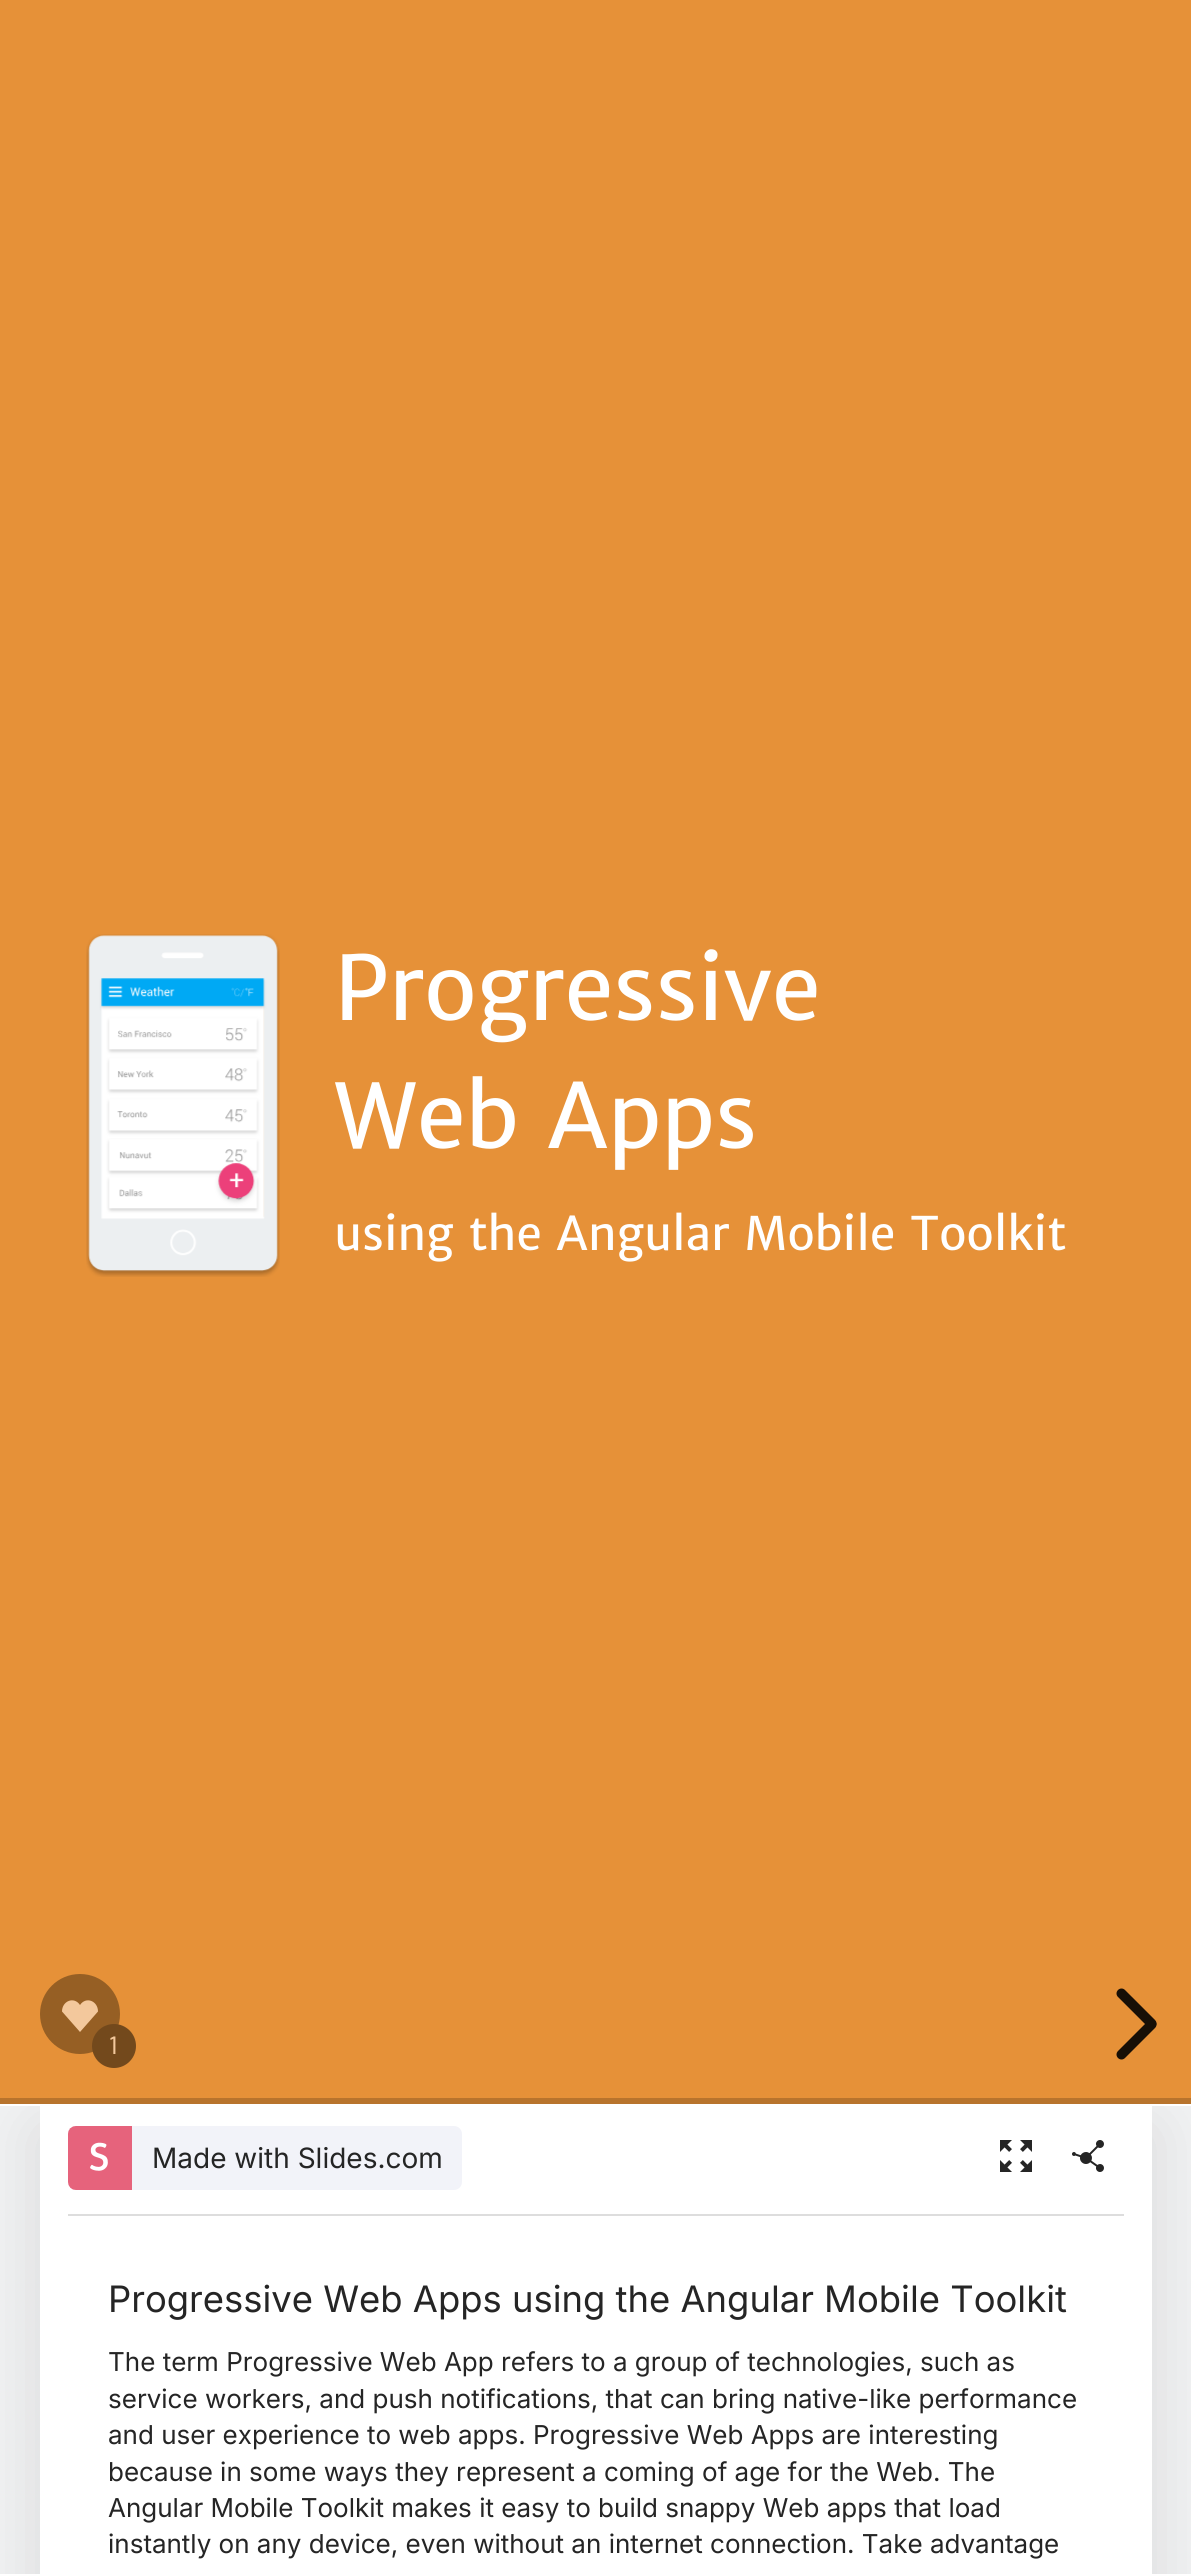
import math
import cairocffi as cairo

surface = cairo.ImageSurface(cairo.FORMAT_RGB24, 1191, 2574)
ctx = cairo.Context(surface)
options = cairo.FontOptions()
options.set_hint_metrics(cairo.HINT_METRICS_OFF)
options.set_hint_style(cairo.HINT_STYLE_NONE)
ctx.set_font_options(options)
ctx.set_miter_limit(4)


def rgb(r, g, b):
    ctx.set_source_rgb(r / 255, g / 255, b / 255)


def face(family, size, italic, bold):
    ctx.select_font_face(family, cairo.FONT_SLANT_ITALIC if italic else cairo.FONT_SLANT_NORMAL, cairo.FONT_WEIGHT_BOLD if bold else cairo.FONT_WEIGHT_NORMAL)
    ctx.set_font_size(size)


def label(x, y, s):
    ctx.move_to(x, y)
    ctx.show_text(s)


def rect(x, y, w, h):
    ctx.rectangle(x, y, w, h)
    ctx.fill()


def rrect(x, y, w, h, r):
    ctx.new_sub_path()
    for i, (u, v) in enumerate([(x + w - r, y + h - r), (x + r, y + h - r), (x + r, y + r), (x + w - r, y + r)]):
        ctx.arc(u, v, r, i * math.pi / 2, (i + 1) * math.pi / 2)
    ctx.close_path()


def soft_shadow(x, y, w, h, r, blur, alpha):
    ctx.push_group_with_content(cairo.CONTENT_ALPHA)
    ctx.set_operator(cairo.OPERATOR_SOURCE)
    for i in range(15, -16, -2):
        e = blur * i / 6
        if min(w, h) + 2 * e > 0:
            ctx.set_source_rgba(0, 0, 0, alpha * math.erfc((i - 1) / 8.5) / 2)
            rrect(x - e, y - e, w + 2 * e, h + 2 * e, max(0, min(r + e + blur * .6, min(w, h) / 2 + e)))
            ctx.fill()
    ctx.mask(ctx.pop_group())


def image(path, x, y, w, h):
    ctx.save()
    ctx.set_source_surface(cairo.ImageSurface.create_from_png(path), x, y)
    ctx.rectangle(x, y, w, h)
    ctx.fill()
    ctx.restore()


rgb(240, 241, 242)
ctx.paint()
rgb(0, 0, 0)
soft_shadow(40, 2130, 1112, 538, 4, 30, 0.1)
rgb(255, 255, 255)
rect(0, 2104, 1191, 2)
rgb(230, 145, 56)
rect(0, 0, 1191, 2098)
image('image0.png', 86, 934, 194, 343)
face('Merriweather Sans', 88.5, 0, 0)
rgb(255, 255, 255)
label(334, 1020, 'Progressive')
label(334, 1148, 'Web Apps')
face('Merriweather Sans', 46, 0, 0)
label(334, 1250, 'using the Angular Mobile Toolkit')
rgb(150, 95, 36)
ctx.new_path()
ctx.arc(80, 2014, 40, 0, 2 * math.pi)
ctx.fill()
rgb(243, 200, 156)
ctx.new_path()
ctx.move_to(80, 2005)
ctx.curve_to(74, 1996, 62, 2001, 62, 2011.5)
ctx.line_to(80, 2032)
ctx.line_to(98, 2011.5)
ctx.curve_to(98, 2001, 86, 1996, 80, 2005)
ctx.close_path()
ctx.fill()
rgb(115, 73, 28)
ctx.arc(114, 2046, 22, 0, 2 * math.pi)
ctx.fill()
face('Oxygen', 24, 0, 0)
rgb(243, 200, 156)
label(110, 2054, '1')
rgb(23, 15, 6)
ctx.new_path()
ctx.move_to(1148, 2027)
ctx.line_to(1118, 1997)
ctx.curve_to(1116, 1995, 1116, 1992, 1118, 1990)
ctx.curve_to(1120, 1988, 1123, 1988, 1125, 1990)
ctx.line_to(1155, 2020)
ctx.curve_to(1157, 2022, 1157, 2025, 1155, 2027)
ctx.curve_to(1153, 2029, 1150, 2029, 1148, 2027)
ctx.close_path()
ctx.fill()
ctx.new_path()
ctx.move_to(1155, 2028)
ctx.line_to(1125, 2058)
ctx.curve_to(1123, 2060, 1120, 2060, 1118, 2058)
ctx.curve_to(1116, 2056, 1116, 2053, 1118, 2051)
ctx.line_to(1148, 2021)
ctx.curve_to(1150, 2019, 1153, 2019, 1155, 2021)
ctx.curve_to(1157, 2023, 1157, 2026, 1155, 2028)
ctx.close_path()
ctx.fill()
rgb(184, 116, 45)
rect(0, 2098, 1191, 6)
rgb(255, 255, 255)
rect(40, 2106, 1112, 468)
rgb(242, 243, 249)
rrect(68, 2126, 394, 64, 8)
ctx.fill()
image('image1.png', 68, 2126, 64, 64)
face('Inter', 28, 0, 0)
rgb(37, 37, 37)
label(152, 2168, 'Made with Slides.com')
image('image2.png', 1000, 2140, 32, 32)
image('image3.png', 1072, 2140, 32, 32)
rgb(221, 221, 221)
rect(68, 2214, 1056, 2)
face('Inter', 36.4, 0, 0)
rgb(37, 37, 37)
label(108, 2312, 'Progressive Web Apps using the Angular Mobile Toolkit')
face('Inter', 26, 0, 0)
label(108, 2371, 'The term Progressive Web App refers to a group of technologies, such as')
label(108, 2408, 'service workers, and push notifications, that can bring native-like performance')
label(108, 2444, 'and user experience to web apps. Progressive Web Apps are interesting')
label(108, 2481, 'because in some ways they represent a coming of age for the Web. The')
label(108, 2517, 'Angular Mobile Toolkit makes it easy to build snappy Web apps that load')
label(108, 2553, 'instantly on any device, even without an internet connection. Take advantage')
surface.write_to_png('render.png')
